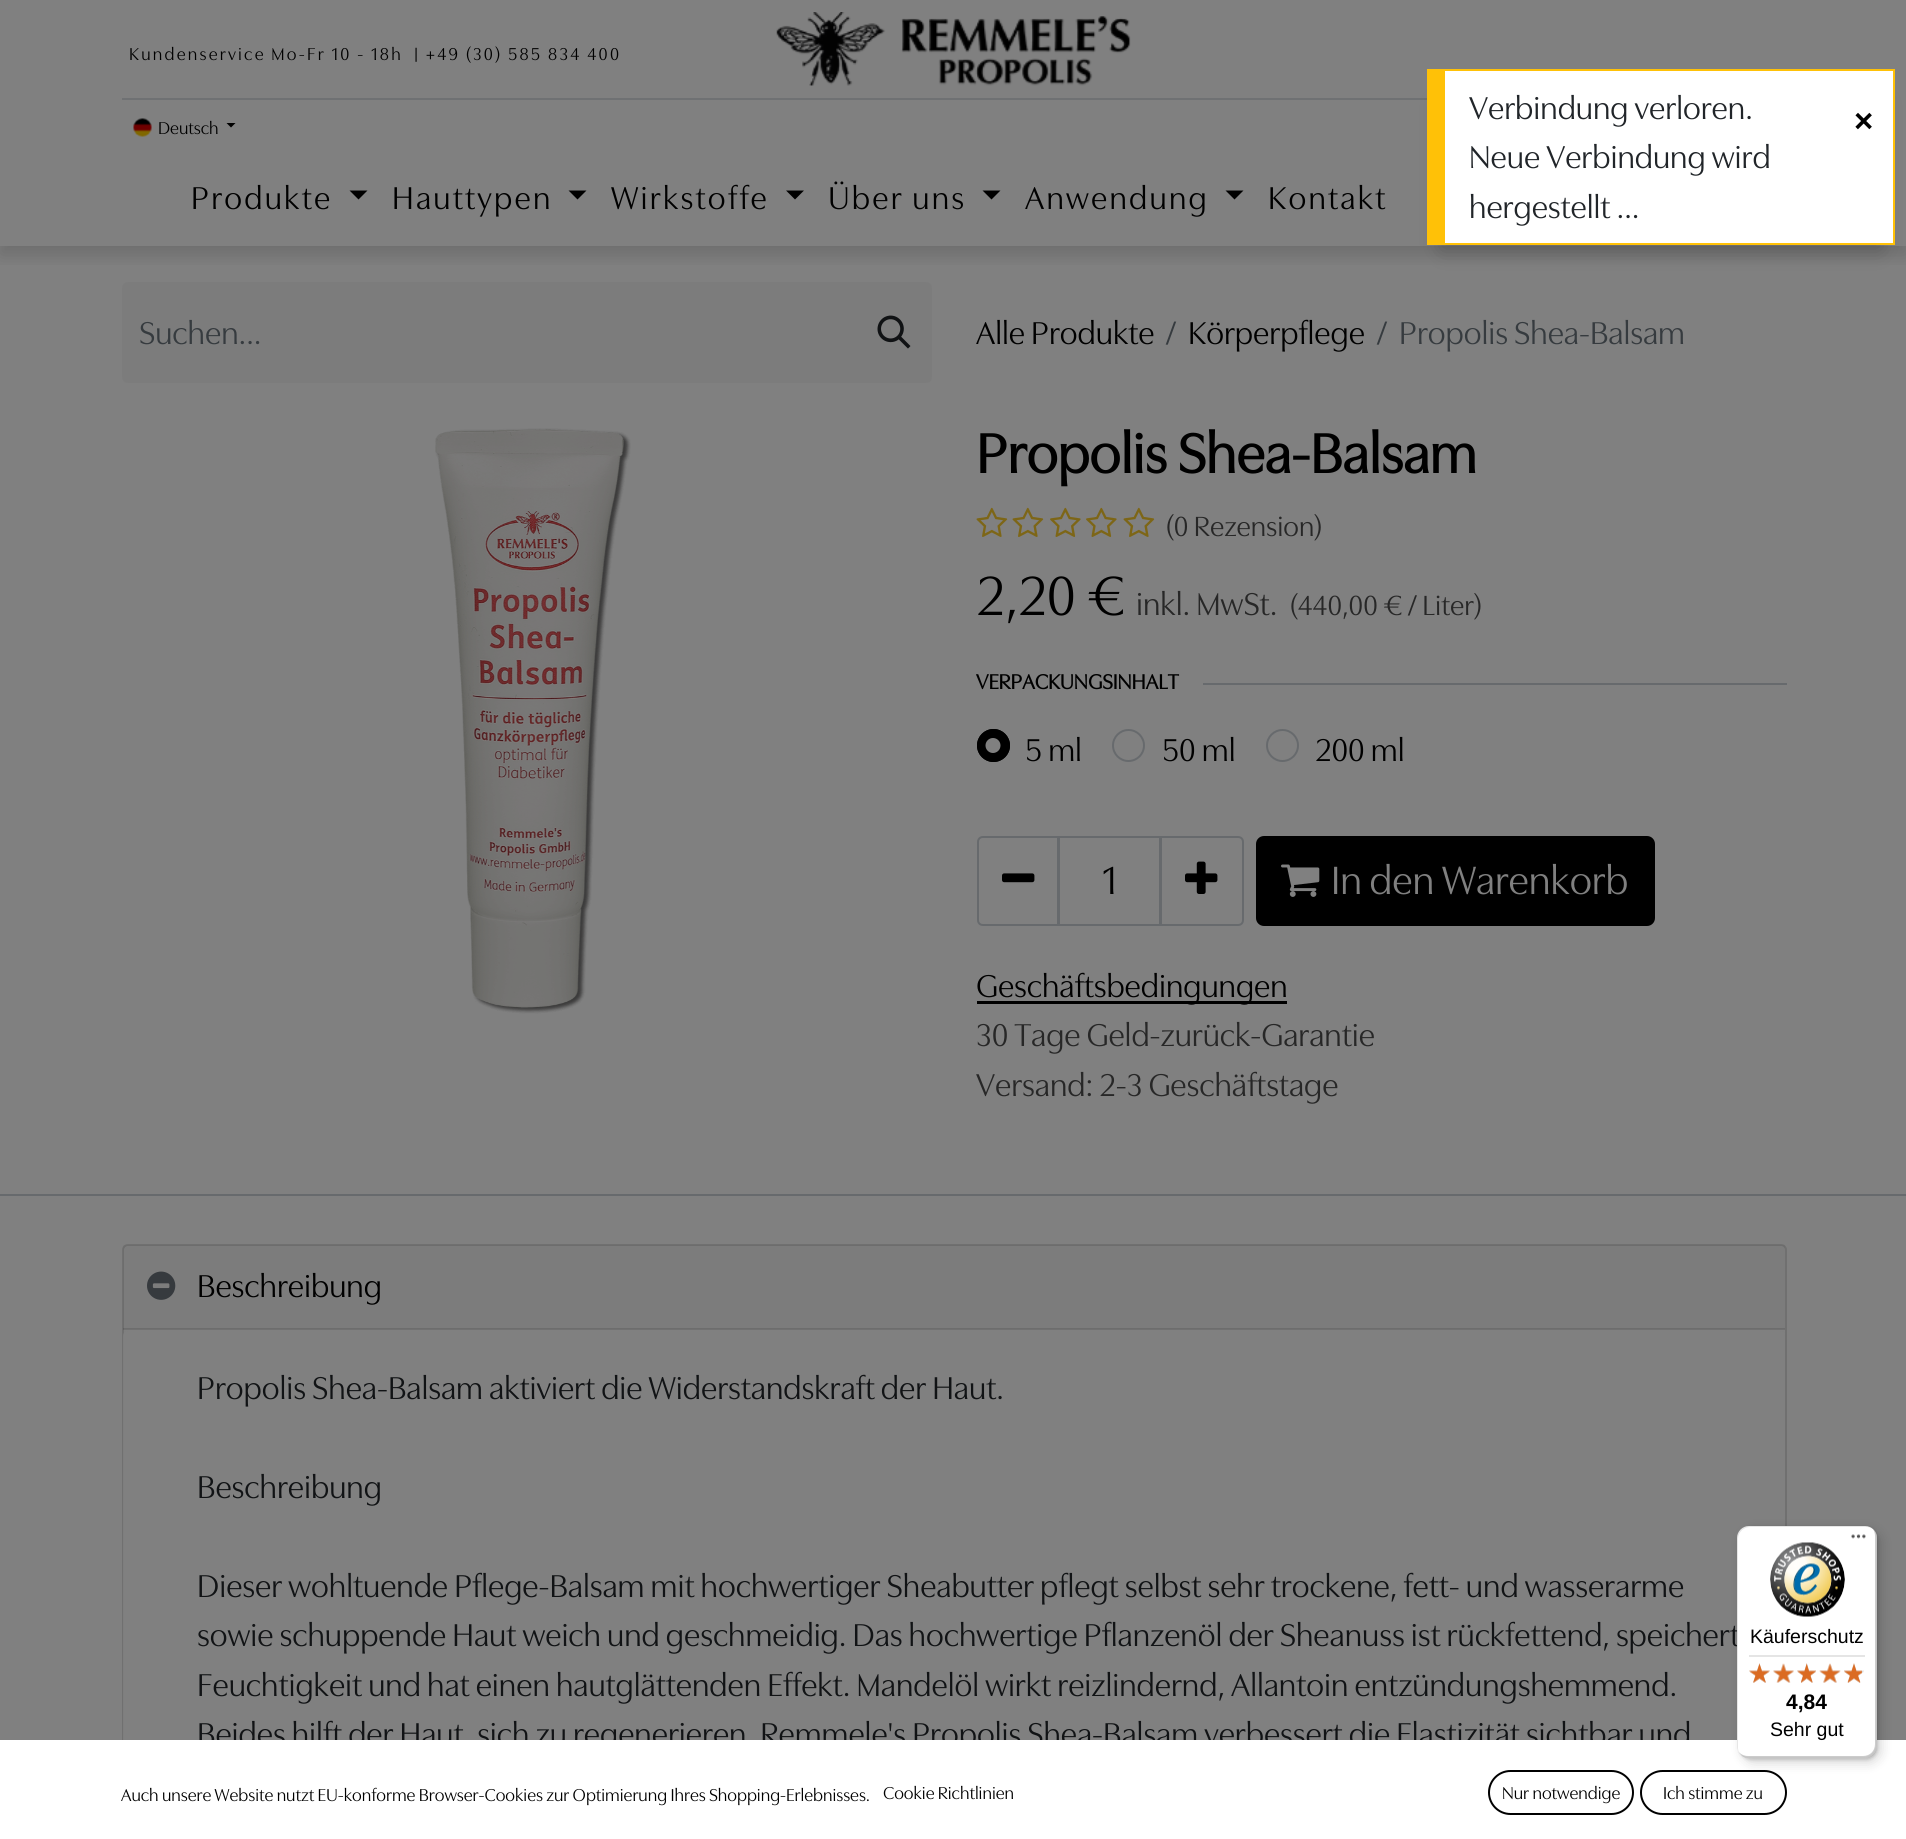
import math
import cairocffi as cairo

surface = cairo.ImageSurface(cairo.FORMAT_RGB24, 1906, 1839)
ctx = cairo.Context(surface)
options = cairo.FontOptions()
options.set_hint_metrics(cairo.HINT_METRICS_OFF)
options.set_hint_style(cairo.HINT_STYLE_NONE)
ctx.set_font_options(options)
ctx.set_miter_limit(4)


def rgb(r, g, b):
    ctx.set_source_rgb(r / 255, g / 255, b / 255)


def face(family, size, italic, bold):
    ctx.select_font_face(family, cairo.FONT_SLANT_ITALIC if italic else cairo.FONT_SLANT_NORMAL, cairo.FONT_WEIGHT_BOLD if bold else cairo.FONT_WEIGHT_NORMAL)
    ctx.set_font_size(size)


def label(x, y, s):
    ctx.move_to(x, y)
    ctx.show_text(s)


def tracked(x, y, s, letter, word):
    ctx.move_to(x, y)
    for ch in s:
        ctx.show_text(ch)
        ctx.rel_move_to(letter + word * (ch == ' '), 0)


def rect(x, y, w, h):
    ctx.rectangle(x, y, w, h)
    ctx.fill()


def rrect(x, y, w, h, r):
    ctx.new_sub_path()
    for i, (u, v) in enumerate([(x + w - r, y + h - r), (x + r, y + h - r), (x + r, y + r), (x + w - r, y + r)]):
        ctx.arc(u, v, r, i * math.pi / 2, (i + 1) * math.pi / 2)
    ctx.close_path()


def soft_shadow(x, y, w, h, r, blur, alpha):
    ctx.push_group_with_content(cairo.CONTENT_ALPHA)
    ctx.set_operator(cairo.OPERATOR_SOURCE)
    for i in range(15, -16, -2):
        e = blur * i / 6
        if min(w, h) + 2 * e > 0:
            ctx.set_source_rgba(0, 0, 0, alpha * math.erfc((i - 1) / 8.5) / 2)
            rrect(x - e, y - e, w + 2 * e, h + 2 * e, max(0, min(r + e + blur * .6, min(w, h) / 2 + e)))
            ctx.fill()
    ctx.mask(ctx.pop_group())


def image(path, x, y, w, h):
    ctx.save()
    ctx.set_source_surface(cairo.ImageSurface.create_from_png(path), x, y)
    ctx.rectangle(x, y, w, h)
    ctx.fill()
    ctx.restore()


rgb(128, 128, 128)
ctx.paint()
rgb(124, 124, 124)
ctx.new_path()
ctx.move_to(128, 282)
ctx.line_to(860, 282)
ctx.line_to(860, 383)
ctx.line_to(128, 383)
ctx.curve_to(124.5, 383, 122, 380.5, 122, 377)
ctx.line_to(122, 288)
ctx.curve_to(122, 284.5, 124.5, 282, 128, 282)
ctx.close_path()
ctx.fill()
ctx.new_path()
ctx.move_to(858, 282)
ctx.line_to(926, 282)
ctx.curve_to(929.5, 282, 932, 284.5, 932, 288)
ctx.line_to(932, 377)
ctx.curve_to(932, 380.5, 929.5, 383, 926, 383)
ctx.line_to(858, 383)
ctx.close_path()
ctx.fill()
ctx.save()
ctx.rectangle(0, 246, 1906, 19)
ctx.clip()
rgb(0, 0, 0)
soft_shadow(0, 9, 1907, 246, 0, 9, 0.15)
ctx.restore()
face('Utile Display', 18, 0, 0)
rgb(0, 0, 0)
tracked(129, 60, 'Kundenservice Mo-Fr 10 - 18h  | +49 (30) 585 834 400', 2.25, 0)
image('image0.png', 776, 12, 355, 74)
rgb(111, 113, 115)
rect(122, 98, 1305, 2)
image('image1.png', 133, 118, 19, 19)
rgb(0, 0, 0)
label(158, 134, 'Deutsch')
ctx.new_path()
ctx.move_to(226.5, 123)
ctx.line_to(235.5, 123)
ctx.line_to(231, 127.5)
ctx.close_path()
ctx.fill()
face('Utile Display', 33, 0, 0)
tracked(191, 209, 'Produkte', 2.25, 0)
ctx.new_path()
ctx.move_to(349.5, 190.5)
ctx.line_to(367.5, 190.5)
ctx.line_to(358.5, 199.5)
ctx.close_path()
ctx.fill()
tracked(392, 209, 'Hauttypen', 2.25, 0)
ctx.new_path()
ctx.move_to(568.5, 190.5)
ctx.line_to(586.5, 190.5)
ctx.line_to(577.5, 199.5)
ctx.close_path()
ctx.fill()
tracked(611, 209, 'Wirkstoffe', 2.25, 0)
ctx.new_path()
ctx.move_to(786, 190.5)
ctx.line_to(804, 190.5)
ctx.line_to(795, 199.5)
ctx.close_path()
ctx.fill()
tracked(828, 209, 'Über uns', 2.25, 0)
ctx.new_path()
ctx.move_to(982.5, 190.5)
ctx.line_to(1000.5, 190.5)
ctx.line_to(991.5, 199.5)
ctx.close_path()
ctx.fill()
tracked(1025, 209, 'Anwendung', 2.25, 0)
ctx.new_path()
ctx.move_to(1225.5, 190.5)
ctx.line_to(1243.5, 190.5)
ctx.line_to(1234.5, 199.5)
ctx.close_path()
ctx.fill()
tracked(1268, 209, 'Kontakt', 2.25, 0)
rgb(54, 59, 63)
label(139, 344, 'Suchen...')
image('image2.png', 877, 315, 34, 34)
rgb(0, 0, 0)
label(976, 344, 'Alle Produkte')
rgb(54, 59, 63)
label(1166, 344, '/')
rgb(0, 0, 0)
label(1188, 344, 'Körperpflege')
rgb(54, 59, 63)
label(1377, 344, '/')
label(1399, 344, 'Propolis Shea-Balsam')
image('image3.png', 435, 428, 196, 586)
face('Utile Display', 57.75, 0, 1)
rgb(0, 0, 0)
label(976, 473, 'Propolis Shea-Balsam')
image('image4.png', 976, 507, 32, 30)
image('image4.png', 1012, 507, 32, 30)
image('image5.png', 1050, 507, 31, 30)
image('image5.png', 1086, 507, 31, 30)
image('image4.png', 1123, 507, 32, 30)
face('Utile Display', 29, 0, 0)
rgb(39, 39, 39)
label(1166, 536, '(0 Rezension)')
face('Utile Display', 57.75, 0, 0)
rgb(0, 0, 0)
label(976, 615, '2,20 €')
face('Utile Display', 33, 0, 0)
rgb(39, 39, 39)
label(1136, 615, 'inkl. MwSt.')
face('Utile Display', 29, 0, 0)
label(1290, 615, '(440,00 € / Liter)')
face('Utile Display', 21.5, 0, 1)
rgb(0, 0, 0)
label(976, 689, 'VERPACKUNGSINHALT')
rgb(103, 106, 109)
rect(1203, 683, 584, 2)
rgb(0, 0, 0)
ctx.new_path()
ctx.arc(993.5, 745.5, 16.5, 0, 2 * math.pi)
ctx.fill()
rgb(128, 128, 128)
ctx.arc(993, 745.5, 7.5, 0, 2 * math.pi)
ctx.fill()
ctx.arc(993.5, 745.5, 15.5, 0, 2 * math.pi)
rgb(0, 0, 0)
ctx.stroke()
face('Utile Display', 33, 0, 0)
label(1025, 761, '5 ml')
ctx.new_path()
ctx.arc(1128.5, 745.5, 15.5, 0, 2 * math.pi)
rgb(103, 106, 109)
ctx.stroke()
rgb(0, 0, 0)
label(1162, 761, '50 ml')
ctx.new_path()
ctx.arc(1282.5, 745.5, 15.5, 0, 2 * math.pi)
rgb(103, 106, 109)
ctx.stroke()
rgb(0, 0, 0)
label(1315, 761, '200 ml')
ctx.rectangle(1059, 837, 101, 88)
rgb(103, 106, 109)
ctx.stroke()
ctx.new_path()
ctx.move_to(983, 837)
ctx.line_to(1058, 837)
ctx.line_to(1058, 925)
ctx.line_to(983, 925)
ctx.curve_to(980, 925, 978, 923, 978, 920)
ctx.line_to(978, 842)
ctx.curve_to(978, 839, 980, 837, 983, 837)
ctx.close_path()
ctx.stroke()
image('image6.png', 1002, 873, 33, 10)
face('Utile Display', 41.25, 0, 0)
rgb(0, 0, 0)
label(1102, 894, '1')
ctx.new_path()
ctx.move_to(1161, 837)
ctx.line_to(1238, 837)
ctx.curve_to(1241, 837, 1243, 839, 1243, 842)
ctx.line_to(1243, 920)
ctx.curve_to(1243, 923, 1241, 925, 1238, 925)
ctx.line_to(1161, 925)
ctx.close_path()
rgb(103, 106, 109)
ctx.stroke()
image('image7.png', 1185, 861, 33, 33)
rgb(0, 0, 0)
rrect(1257, 837, 397, 88, 7)
ctx.fill_preserve()
ctx.stroke()
image('image8.png', 1281, 864, 39, 33)
rgb(128, 128, 128)
label(1331, 894, 'In den Warenkorb')
rgb(0, 0, 0)
rect(977, 1001, 310, 3)
face('Utile Display', 33, 0, 0)
label(976, 997, 'Geschäftsbedingungen')
rgb(39, 39, 39)
label(976, 1046, '30 Tage Geld-zurück-Garantie')
label(976, 1096, 'Versand: 2-3 Geschäftstage')
rgb(103, 106, 109)
rect(0, 1194, 1906, 2)
rrect(123, 1245, 1663, 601, 5)
rgb(112, 112, 112)
ctx.stroke()
ctx.set_source_rgba(0, 0, 0, 0.03)
rect(123, 1245, 1662, 84)
ctx.set_source_rgba(0, 0, 0, 0.12)
rect(123, 1328, 1662, 2)
image('image9.png', 147, 1271, 29, 29)
rgb(0, 0, 0)
label(197, 1297, 'Beschreibung')
ctx.set_source_rgba(0.502, 0.502, 0.502, 0.9)
ctx.new_path()
ctx.move_to(128, 1331)
ctx.line_to(1780, 1331)
ctx.curve_to(1783, 1331, 1785, 1333, 1785, 1336)
ctx.line_to(1785, 1839)
ctx.line_to(123, 1839)
ctx.line_to(123, 1336)
ctx.curve_to(123, 1333, 125, 1331, 128, 1331)
ctx.close_path()
ctx.fill()
rgb(17, 19, 21)
label(197, 1399, 'Propolis Shea-Balsam aktiviert die Widerstandskraft der Haut.')
label(197, 1498, 'Beschreibung')
label(197, 1597, 'Dieser wohltuende Pflege-Balsam mit hochwertiger Sheabutter pflegt selbst sehr trockene, fett- und wasserarme')
label(197, 1646, 'sowie schuppende Haut weich und geschmeidig. Das hochwertige Pflanzenöl der Sheanuss ist rückfettend, speichert')
label(197, 1696, 'Feuchtigkeit und hat einen hautglättenden Effekt. Mandelöl wirkt reizlindernd, Allantoin entzündungshemmend.')
label(197, 1745, 'Beides hilft der Haut, sich zu regenerieren. Remmele\'s Propolis Shea-Balsam verbessert die Elastizität sichtbar und')
rgb(255, 255, 255)
rect(0, 1740, 1906, 99)
face('Utile Display', 18, 0, 0)
rgb(0, 0, 0)
label(121, 1801, 'Auch unsere Website nutzt EU-konforme Browser-Cookies zur Optimierung Ihres Shopping-Erlebnisses.')
label(883, 1799, 'Cookie Richtlinien')
rrect(1489, 1771, 144, 43, 21.5)
ctx.stroke()
label(1502, 1799, 'Nur notwendige')
rrect(1641, 1771, 145, 43, 21.5)
ctx.stroke()
label(1663, 1799, 'Ich stimme zu')
rgb(0, 0, 0)
soft_shadow(1442, 102, 438, 146, 0, 10.5, 0.25)
rgb(255, 255, 255)
rect(1445, 71, 448, 172)
rgb(255, 193, 7)
rect(1445, 69, 450, 2)
rect(1893, 69, 2, 176)
rect(1445, 243, 450, 2)
rect(1427, 69, 18, 176)
face('Utile Display', 33, 0, 0)
rgb(33, 37, 41)
label(1469, 119, 'Verbindung verloren.')
label(1469, 168, 'Neue Verbindung wird')
label(1469, 218, 'hergestellt ...')
face('Liberation Sans', 33, 0, 1)
rgb(0, 0, 0)
label(1854, 132, '×')
rgb(0, 0, 0)
soft_shadow(1742, 1530, 139, 233, 12, 6, 0.15)
soft_shadow(1739, 1527, 139, 233, 12, 1.5, 0.15)
rgb(255, 255, 255)
rrect(1737, 1526, 140, 232, 12)
ctx.fill()
ctx.set_source_rgba(0, 0, 0, 0.1)
ctx.new_path()
ctx.move_to(1750, 1527)
ctx.line_to(1866, 1527)
ctx.curve_to(1869, 1527, 1871, 1528, 1873, 1529)
ctx.curve_to(1871, 1527, 1868, 1526, 1865, 1526)
ctx.line_to(1749, 1526)
ctx.curve_to(1742, 1526, 1737, 1531, 1737, 1538)
ctx.line_to(1737, 1746)
ctx.curve_to(1737, 1749, 1738, 1751, 1740, 1753)
ctx.curve_to(1739, 1752, 1738, 1750, 1738, 1748)
ctx.line_to(1738, 1539)
ctx.curve_to(1738, 1532, 1744, 1527, 1750, 1527)
ctx.close_path()
ctx.fill()
ctx.set_source_rgba(0, 0, 0, 0.2)
ctx.new_path()
ctx.move_to(1738, 1751)
ctx.curve_to(1740, 1755, 1744, 1758, 1749, 1758)
ctx.line_to(1865, 1758)
ctx.curve_to(1872, 1758, 1877, 1753, 1877, 1746)
ctx.line_to(1877, 1538)
ctx.curve_to(1877, 1534, 1875, 1531, 1873, 1529)
ctx.curve_to(1874, 1531, 1875, 1533, 1875, 1536)
ctx.line_to(1875, 1744)
ctx.curve_to(1875, 1751, 1870, 1756, 1863, 1756)
ctx.line_to(1748, 1756)
ctx.curve_to(1744, 1756, 1740, 1754, 1738, 1751)
ctx.close_path()
ctx.fill()
ctx.set_source_rgba(0.196, 0.196, 0.196, 0.2)
ctx.new_path()
ctx.move_to(1741, 1755)
ctx.curve_to(1743, 1757, 1746, 1758, 1749, 1758)
ctx.line_to(1865, 1758)
ctx.curve_to(1872, 1758, 1877, 1753, 1877, 1746)
ctx.line_to(1877, 1538)
ctx.curve_to(1877, 1534, 1875, 1531, 1873, 1529)
ctx.curve_to(1875, 1531, 1876, 1534, 1876, 1537)
ctx.line_to(1876, 1745)
ctx.curve_to(1876, 1752, 1870, 1757, 1864, 1757)
ctx.line_to(1748, 1757)
ctx.curve_to(1745, 1757, 1743, 1756, 1741, 1755)
ctx.close_path()
ctx.fill()
ctx.set_source_rgba(1, 1, 1, 0.3)
ctx.new_path()
ctx.move_to(1740, 1754)
ctx.curve_to(1742, 1756, 1745, 1758, 1749, 1758)
ctx.line_to(1865, 1758)
ctx.curve_to(1872, 1758, 1877, 1753, 1877, 1746)
ctx.line_to(1877, 1538)
ctx.curve_to(1877, 1534, 1875, 1531, 1873, 1529)
ctx.curve_to(1875, 1531, 1876, 1534, 1876, 1537)
ctx.line_to(1876, 1745)
ctx.curve_to(1876, 1752, 1870, 1757, 1864, 1757)
ctx.line_to(1748, 1757)
ctx.curve_to(1745, 1757, 1742, 1756, 1740, 1754)
ctx.close_path()
ctx.fill()
image('image10.png', 1851, 1534, 15, 5)
image('image11.png', 1770, 1542, 75, 75)
face('Liberation Sans', 19.5, 0, 0)
rgb(0, 0, 0)
label(1750, 1643, 'Käuferschutz')
rgb(229, 229, 229)
rect(1749, 1655, 116, 2)
image('image12.png', 1749, 1663, 21, 20)
image('image13.png', 1773, 1664, 21, 19)
image('image14.png', 1797, 1663, 19, 20)
image('image15.png', 1820, 1664, 20, 19)
image('image16.png', 1844, 1663, 20, 20)
image('image17.png', 1749, 1663, 21, 20)
image('image18.png', 1773, 1663, 21, 20)
image('image19.png', 1797, 1663, 19, 20)
image('image20.png', 1819, 1663, 22, 20)
image('image21.png', 1844, 1663, 18, 20)
face('Liberation Sans', 21, 0, 1)
rgb(0, 0, 0)
label(1786, 1709, '4,84')
face('Liberation Sans', 19.5, 0, 0)
label(1770, 1736, 'Sehr gut')
surface.write_to_png('render.png')
